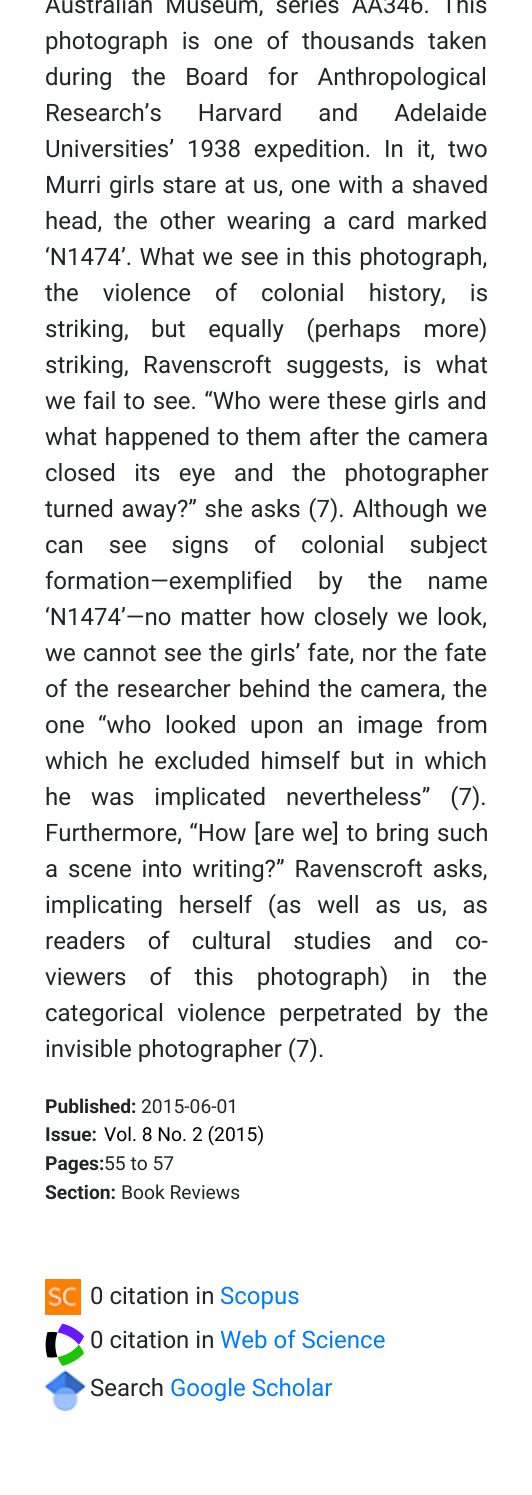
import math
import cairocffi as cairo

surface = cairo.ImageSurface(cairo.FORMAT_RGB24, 532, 1495)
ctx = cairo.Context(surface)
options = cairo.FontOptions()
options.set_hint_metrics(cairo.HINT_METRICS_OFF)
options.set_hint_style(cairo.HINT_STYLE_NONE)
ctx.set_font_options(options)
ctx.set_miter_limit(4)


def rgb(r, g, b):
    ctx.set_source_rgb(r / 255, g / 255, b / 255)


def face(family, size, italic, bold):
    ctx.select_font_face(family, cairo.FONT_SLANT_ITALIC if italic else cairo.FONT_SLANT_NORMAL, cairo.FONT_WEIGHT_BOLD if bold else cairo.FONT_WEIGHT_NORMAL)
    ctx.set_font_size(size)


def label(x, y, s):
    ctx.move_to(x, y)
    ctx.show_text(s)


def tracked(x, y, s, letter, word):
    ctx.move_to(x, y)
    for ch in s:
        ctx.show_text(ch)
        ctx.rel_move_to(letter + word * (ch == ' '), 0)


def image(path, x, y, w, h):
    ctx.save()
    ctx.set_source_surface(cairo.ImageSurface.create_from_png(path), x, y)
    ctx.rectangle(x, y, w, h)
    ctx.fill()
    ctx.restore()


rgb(255, 255, 255)
ctx.paint()
face('Roboto', 24, 0, 0)
rgb(33, 37, 41)
tracked(45, 13, 'Australian Museum, series AA346. This', 0, 6)
tracked(45, 49, 'photograph is one of thousands taken', 0, 7.5)
tracked(45, 85, 'during the Board for Anthropological', 0, 13.5)
tracked(45, 121, 'Research’s Harvard and Adelaide', 0, 30)
tracked(45, 157, 'Universities’ 1938 expedition. In it, two', 0, 7)
tracked(45, 193, 'Murri girls stare at us, one with a shaved', 0, 1.75)
tracked(45, 229, 'head, the other wearing a card marked', 0, 5.75)
tracked(45, 265, '‘N1474’. What we see in this photograph,', 0, 1.5)
tracked(45, 301, 'the violence of colonial history, is', 0, 18)
tracked(45, 337, 'striking, but equally (perhaps more)', 0, 16.5)
tracked(45, 373, 'striking, Ravenscroft suggests, is what', 0, 8.5)
tracked(45, 409, 'we fail to see. “Who were these girls and', 0, 1.5)
tracked(45, 445, 'what happened to them after the camera', 0, 1.5)
tracked(45, 481, 'closed its eye and the photographer', 0, 12.5)
tracked(45, 517, 'turned away?” she asks (7). Although we', 0, 1.75)
tracked(45, 553, 'can see signs of colonial subject', 0, 19)
tracked(45, 589, 'formation—exemplified by the name', 0, 19.5)
tracked(45, 625, '‘N1474’—no matter how closely we look,', 0, 3)
tracked(45, 661, 'we cannot see the girls’ fate, nor the fate', 0, 1.25)
tracked(45, 697, 'of the researcher behind the camera, the', 0, 2)
tracked(45, 733, 'one “who looked upon an image from', 0, 7.5)
tracked(45, 769, 'which he excluded himself but in which', 0, 4.25)
tracked(45, 805, 'he was implicated nevertheless” (7).', 0, 14)
tracked(45, 841, 'Furthermore, “How [are we] to bring such', 0, 1.5)
tracked(45, 877, 'a scene into writing?” Ravenscroft asks,', 0, 4)
tracked(45, 913, 'implicating herself (as well as us, as', 0, 9.75)
tracked(45, 949, 'readers of cultural studies and co-', 0, 16)
tracked(45, 985, 'viewers of this photograph) in the', 0, 17)
tracked(45, 1021, 'categorical violence perpetrated by the', 0, 7.5)
label(45, 1057, 'invisible photographer (7).')
face('Roboto', 19.25, 0, 1)
label(45, 1113, 'Published:')
face('Roboto', 19.25, 0, 0)
label(141, 1113, '2015-06-01')
face('Roboto', 19.25, 0, 1)
label(45, 1141, 'Issue:')
face('Roboto', 19.25, 0, 0)
rgb(0, 0, 0)
label(104, 1141, 'Vol. 8 No. 2 (2015)')
face('Roboto', 19.25, 0, 1)
rgb(33, 37, 41)
label(45, 1170, 'Pages:')
face('Roboto', 19.25, 0, 0)
label(104, 1170, '55 to 57')
face('Roboto', 19.25, 0, 1)
label(45, 1199, 'Section:')
face('Roboto', 19.25, 0, 0)
label(121, 1199, 'Book Reviews')
image('image0.png', 45, 1279, 36, 36)
face('Roboto', 24, 0, 0)
label(90, 1304, '0 citation in')
rgb(0, 123, 255)
label(220, 1304, 'Scopus')
image('image1.png', 45, 1323, 39, 43)
rgb(33, 37, 41)
label(90, 1348, '0 citation in')
rgb(0, 123, 255)
label(220, 1348, 'Web of Science')
image('image2.png', 45, 1370, 41, 41)
rgb(33, 37, 41)
label(90, 1396, 'Search')
rgb(0, 123, 255)
label(170, 1396, 'Google Scholar')
surface.write_to_png('render.png')
